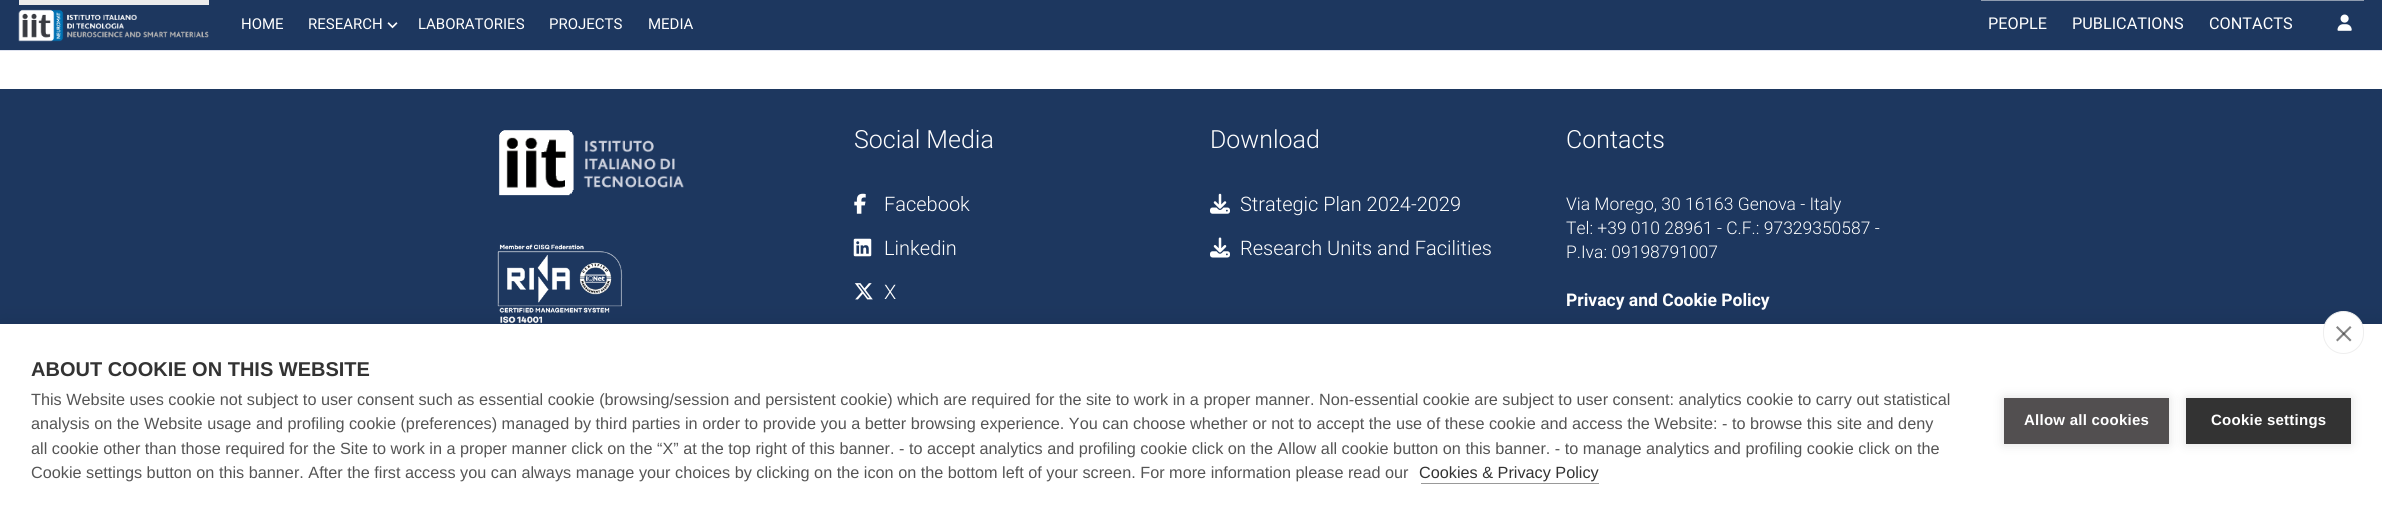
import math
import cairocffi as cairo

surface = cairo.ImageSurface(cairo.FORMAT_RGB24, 2382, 516)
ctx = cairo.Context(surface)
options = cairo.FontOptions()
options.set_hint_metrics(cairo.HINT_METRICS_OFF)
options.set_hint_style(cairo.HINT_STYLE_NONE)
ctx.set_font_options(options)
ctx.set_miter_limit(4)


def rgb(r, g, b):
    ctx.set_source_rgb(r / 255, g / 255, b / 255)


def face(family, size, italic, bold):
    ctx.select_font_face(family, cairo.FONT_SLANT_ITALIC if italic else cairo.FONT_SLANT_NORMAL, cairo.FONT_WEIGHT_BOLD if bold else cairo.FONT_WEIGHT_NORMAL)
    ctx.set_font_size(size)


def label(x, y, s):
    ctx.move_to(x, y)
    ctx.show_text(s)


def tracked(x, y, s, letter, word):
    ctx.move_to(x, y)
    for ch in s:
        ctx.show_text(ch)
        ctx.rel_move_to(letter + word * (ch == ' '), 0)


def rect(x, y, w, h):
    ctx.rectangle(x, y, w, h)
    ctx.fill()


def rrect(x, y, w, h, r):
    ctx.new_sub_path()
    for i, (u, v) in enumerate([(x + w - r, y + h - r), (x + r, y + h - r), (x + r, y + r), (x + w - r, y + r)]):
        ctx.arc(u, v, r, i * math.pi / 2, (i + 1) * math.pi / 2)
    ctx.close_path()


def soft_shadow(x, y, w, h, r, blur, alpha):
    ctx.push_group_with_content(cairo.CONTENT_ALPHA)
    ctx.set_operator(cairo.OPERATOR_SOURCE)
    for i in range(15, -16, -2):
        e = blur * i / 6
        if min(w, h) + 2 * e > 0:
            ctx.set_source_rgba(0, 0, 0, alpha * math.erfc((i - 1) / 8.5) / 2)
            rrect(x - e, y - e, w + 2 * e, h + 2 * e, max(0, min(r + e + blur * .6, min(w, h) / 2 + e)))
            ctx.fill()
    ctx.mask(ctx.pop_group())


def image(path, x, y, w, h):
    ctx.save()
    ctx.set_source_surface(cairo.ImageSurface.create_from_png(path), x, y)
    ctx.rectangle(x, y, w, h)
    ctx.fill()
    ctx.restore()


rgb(255, 255, 255)
ctx.paint()
rgb(29, 55, 95)
rect(0, 0, 2382, 50)
rgb(222, 226, 239)
rect(0, 50, 2382, 1)
rgb(235, 235, 235)
rect(19, 0, 190, 5)
image('image0.png', 18, 9, 191, 33)
face('Roboto', 15, 0, 0)
rgb(255, 255, 255)
label(241, 29, 'HOME')
label(308, 29, 'RESEARCH')
image('image1.png', 387, 22, 11, 7)
label(418, 29, 'LABORATORIES')
label(549, 29, 'PROJECTS')
label(648, 29, 'MEDIA')
rgb(142, 155, 175)
rect(1981, 0, 383, 1)
face('Roboto', 16.25, 0, 0)
rgb(255, 255, 255)
label(1988, 29, 'PEOPLE')
label(2072, 29, 'PUBLICATIONS')
label(2209, 29, 'CONTACTS')
image('image2.png', 2337, 14, 15, 17)
rgb(29, 55, 95)
rect(0, 89, 2382, 235)
image('image3.png', 499, 130, 185, 66)
image('image4.png', 497, 244, 126, 80)
face('Roboto Light', 25, 0, 0)
rgb(255, 255, 255)
label(854, 148, 'Social Media')
image('image5.png', 854, 193, 12, 21)
face('Roboto Light', 20, 0, 0)
label(884, 211, 'Facebook')
image('image6.png', 853, 238, 19, 19)
label(884, 255, 'Linkedin')
image('image7.png', 854, 283, 19, 17)
label(884, 299, 'X')
face('Roboto Light', 25, 0, 0)
label(1210, 148, 'Download')
image('image8.png', 1210, 193, 20, 21)
face('Roboto Light', 20, 0, 0)
label(1240, 211, 'Strategic Plan 2024-2029')
image('image9.png', 1210, 237, 20, 21)
label(1240, 255, 'Research Units and Facilities')
face('Roboto Light', 25, 0, 0)
label(1566, 148, 'Contacts')
face('Roboto Light', 17.5, 0, 0)
label(1566, 210, 'Via Morego, 30 16163 Genova - Italy')
label(1566, 234, 'Tel: +39 010 28961 - C.F.: 97329350587 -')
label(1566, 258, 'P.Iva: 09198791007')
face('Roboto', 17.5, 0, 1)
label(1566, 306, 'Privacy and Cookie Policy')
rgb(0, 0, 0)
soft_shadow(0, 324, 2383, 192, 0, 12.5, 0.1)
rgb(255, 255, 255)
rect(0, 324, 2382, 192)
rrect(2323.5, 311.5, 40, 42, 20)
ctx.fill_preserve()
rgb(238, 238, 238)
ctx.set_line_width(1)
ctx.stroke()
rgb(133, 133, 133)
ctx.new_path()
ctx.move_to(2336, 340)
ctx.line_to(2350, 326)
ctx.line_to(2351.5, 327.5)
ctx.line_to(2337.5, 341.5)
ctx.close_path()
ctx.fill()
ctx.set_source_rgba(0.2, 0.2, 0.2, 0.6)
ctx.new_path()
ctx.move_to(2337.5, 326)
ctx.line_to(2351.5, 340)
ctx.line_to(2350, 341.5)
ctx.line_to(2336, 327.5)
ctx.close_path()
ctx.fill()
face('Liberation Sans', 20, 0, 1)
rgb(51, 51, 51)
label(31, 376, 'ABOUT COOKIE ON THIS WEBSITE')
face('Liberation Sans', 16.25, 0, 0)
rgb(85, 85, 85)
label(31, 405, 'This Website uses cookie not subject to user consent such as essential cookie (browsing/session and persistent cookie) which are required for the site to work in a proper manner. Non-essential cookie are subject to user consent: analytics cookie to carry out statistical')
label(31, 429, 'analysis on the Website usage and profiling cookie (preferences) managed by third parties in order to provide you a better browsing experience. You can choose whether or not to accept the use of these cookie and access the Website: - to browse this site and deny')
label(31, 454, 'all cookie other than those required for the Site to work in a proper manner click on the “X” at the top right of this banner. - to accept analytics and profiling cookie click on the Allow all cookie button on this banner. - to manage analytics and profiling cookie click on the')
label(31, 478, 'Cookie settings button on this banner. After the first access you can always manage your choices by clicking on the icon on the bottom left of your screen. For more information please read our')
rgb(51, 51, 51)
label(1419, 478, 'Cookies & Privacy Policy')
rgb(153, 153, 153)
rect(1421, 483, 178, 1)
rgb(0, 0, 0)
soft_shadow(2004, 398, 165, 46, 0, 6, 0.12)
rgb(82, 79, 80)
rect(2004, 398, 165, 46)
face('Liberation Sans', 15, 0, 1)
rgb(255, 255, 255)
tracked(2024, 425, 'Allow all cookies', 0.25, 0)
rgb(0, 0, 0)
soft_shadow(2186, 398, 165, 46, 0, 6, 0.12)
rgb(51, 51, 51)
rect(2186, 398, 165, 46)
rgb(255, 255, 255)
tracked(2211, 425, 'Cookie settings', 0.25, 0)
surface.write_to_png('render.png')
